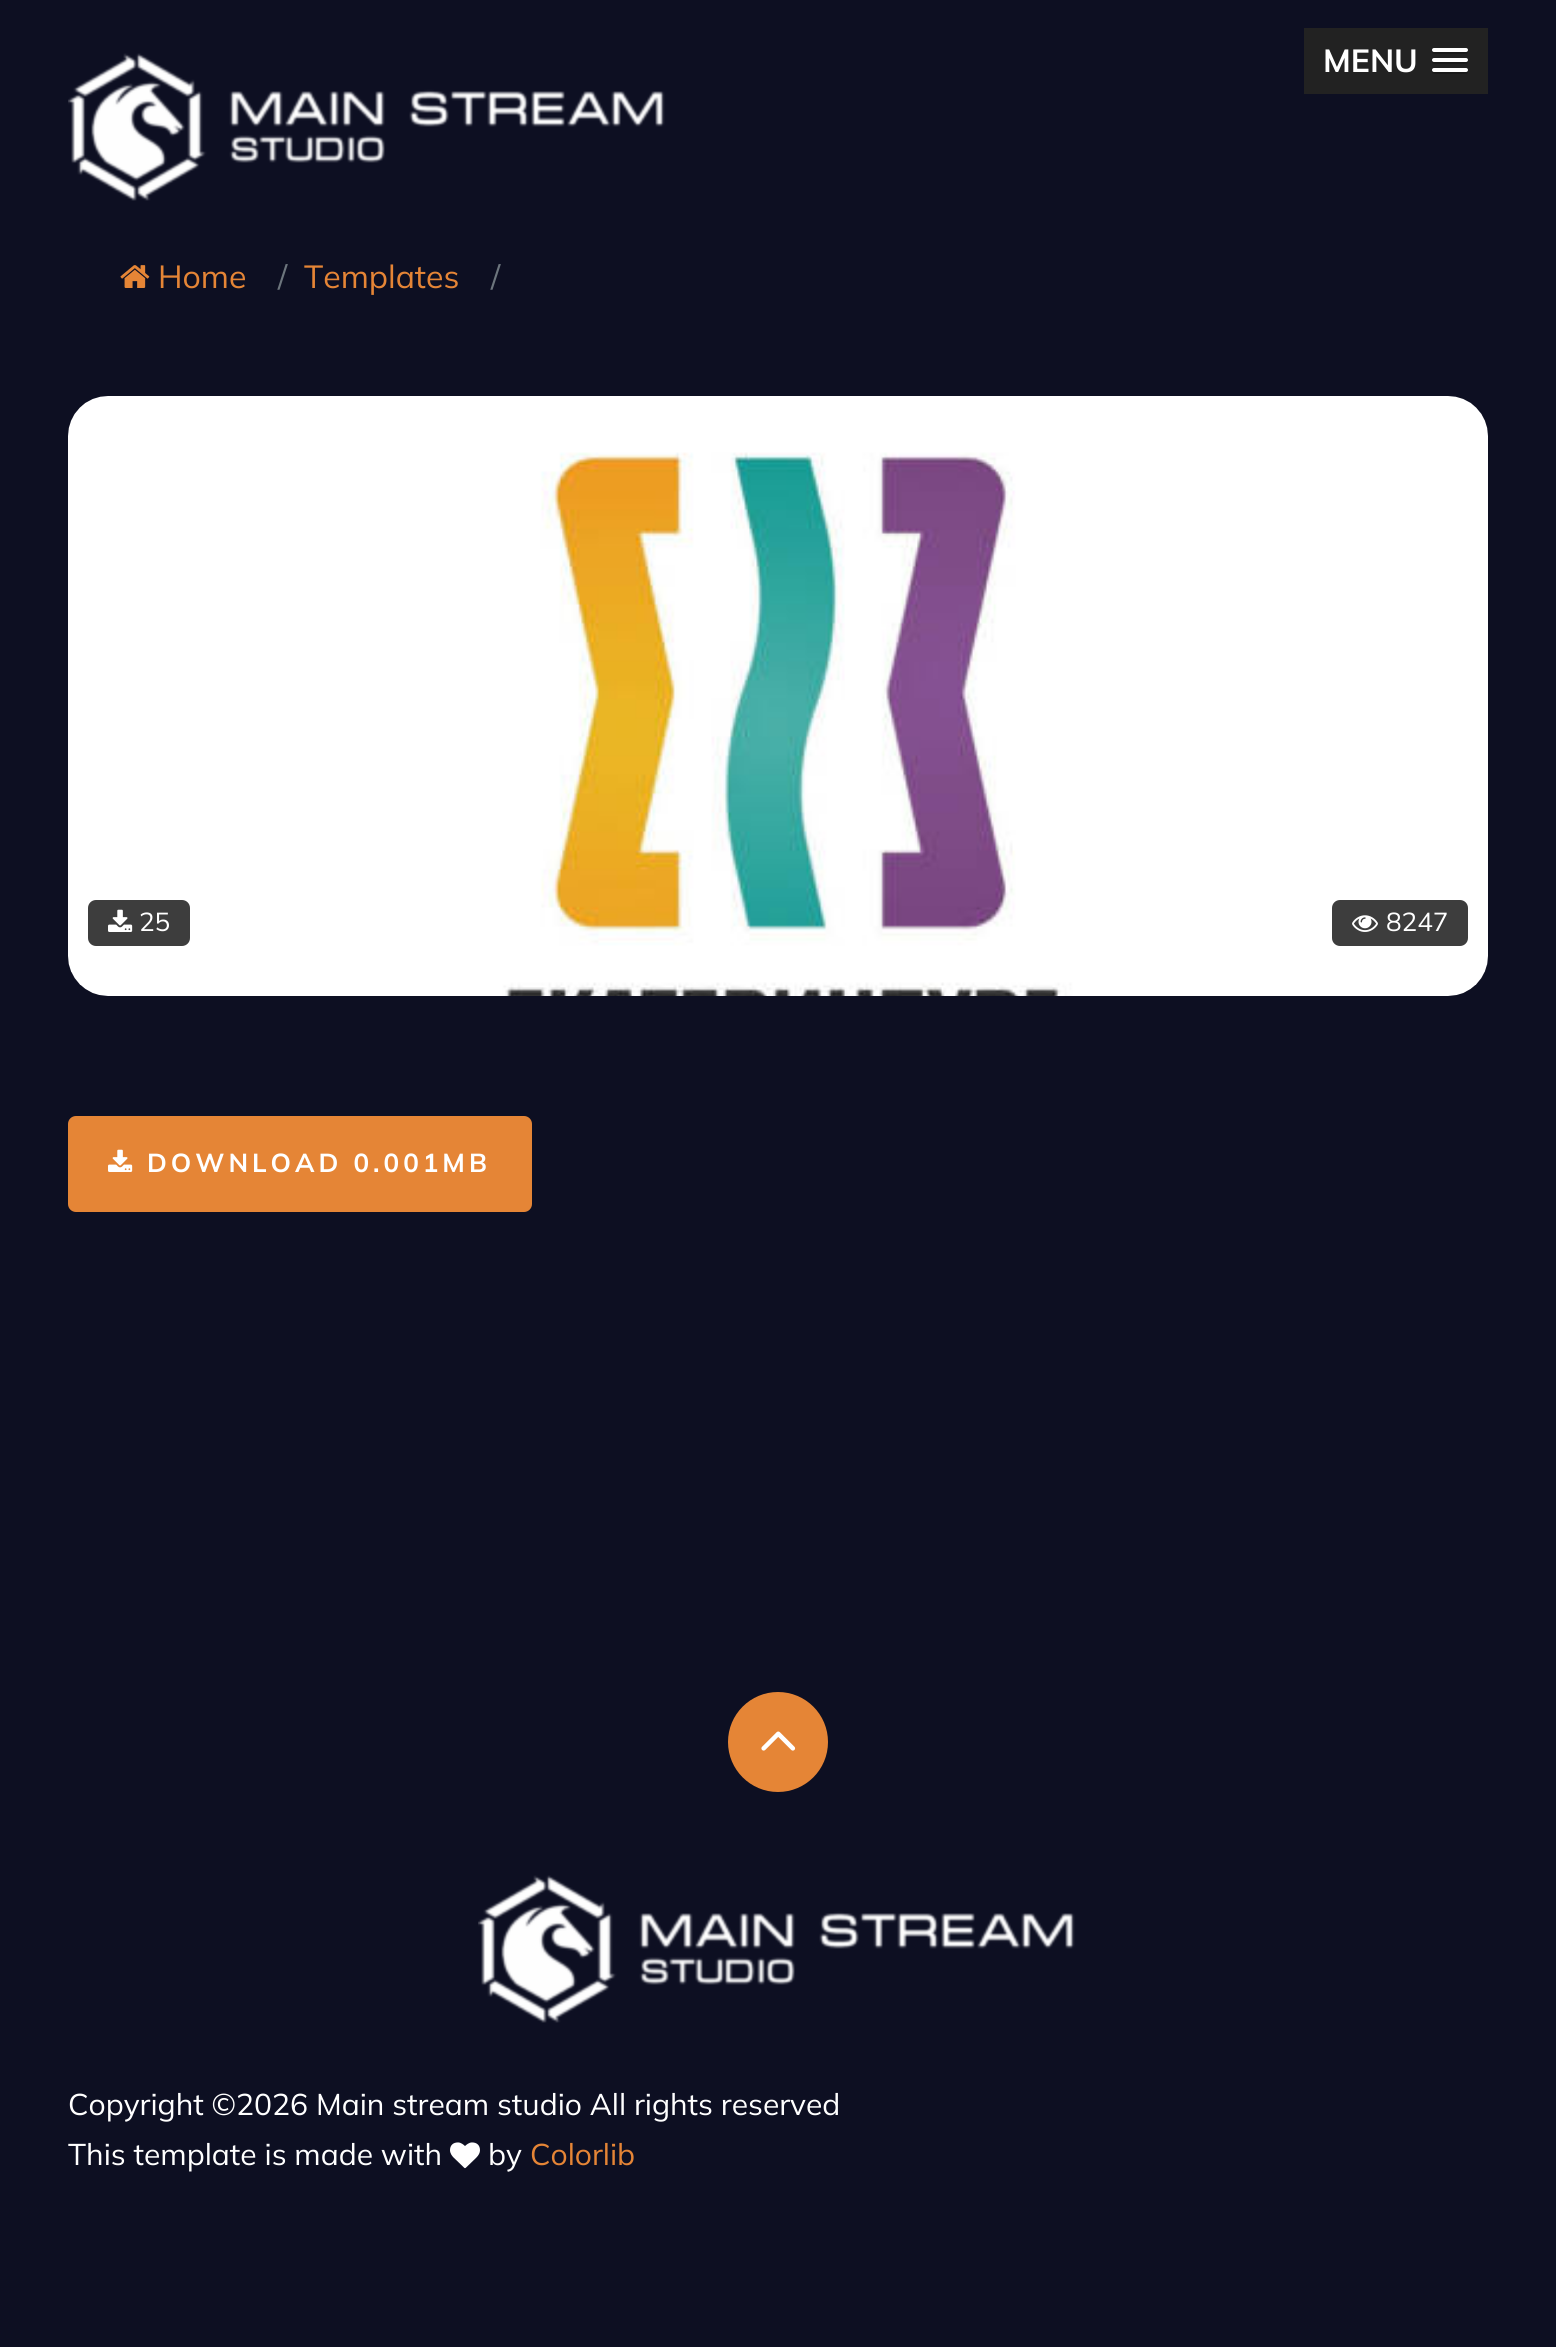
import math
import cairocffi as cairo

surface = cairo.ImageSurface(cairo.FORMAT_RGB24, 1556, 2347)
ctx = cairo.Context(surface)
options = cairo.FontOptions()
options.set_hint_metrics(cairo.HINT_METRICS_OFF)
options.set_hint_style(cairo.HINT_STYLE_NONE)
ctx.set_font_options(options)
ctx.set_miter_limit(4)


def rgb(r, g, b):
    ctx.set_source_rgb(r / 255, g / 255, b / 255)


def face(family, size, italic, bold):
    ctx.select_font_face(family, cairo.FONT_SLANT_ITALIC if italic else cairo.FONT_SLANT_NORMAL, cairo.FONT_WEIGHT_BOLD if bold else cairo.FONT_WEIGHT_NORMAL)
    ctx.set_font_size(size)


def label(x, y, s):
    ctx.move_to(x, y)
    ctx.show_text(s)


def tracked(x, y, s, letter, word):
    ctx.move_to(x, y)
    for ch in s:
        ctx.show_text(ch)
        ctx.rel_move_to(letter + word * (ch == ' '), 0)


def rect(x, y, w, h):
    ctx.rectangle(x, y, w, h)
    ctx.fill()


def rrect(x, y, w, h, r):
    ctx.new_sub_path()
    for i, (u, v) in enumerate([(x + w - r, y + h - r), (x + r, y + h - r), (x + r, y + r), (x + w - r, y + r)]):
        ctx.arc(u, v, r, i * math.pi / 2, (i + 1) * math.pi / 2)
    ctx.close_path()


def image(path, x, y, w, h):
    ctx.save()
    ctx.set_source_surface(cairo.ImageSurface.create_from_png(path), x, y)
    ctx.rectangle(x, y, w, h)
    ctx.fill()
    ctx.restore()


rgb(13, 15, 34)
ctx.paint()
image('image0.png', 68, 53, 597, 148)
rgb(34, 34, 34)
rect(1304, 28, 184, 66)
face('Mulish', 32, 0, 1)
rgb(255, 255, 255)
label(1323, 72, 'MENU')
rgb(26, 26, 26)
ctx.new_path()
ctx.move_to(1432.5, 51)
ctx.curve_to(1430, 55, 1439, 54, 1439.5, 54)
ctx.line_to(1460.5, 54)
ctx.curve_to(1461, 54, 1470, 55, 1467.5, 51)
ctx.curve_to(1467.5, 51.5, 1466.5, 52, 1466, 52)
ctx.line_to(1434, 52)
ctx.curve_to(1433.5, 52, 1432.5, 51.5, 1432.5, 51)
ctx.close_path()
ctx.fill()
rgb(255, 255, 255)
rrect(1432, 48, 36, 4, 2)
ctx.fill()
rgb(26, 26, 26)
ctx.new_path()
ctx.move_to(1432.5, 61)
ctx.curve_to(1430, 65, 1439, 64, 1439.5, 64)
ctx.line_to(1460.5, 64)
ctx.curve_to(1461, 64, 1470, 65, 1467.5, 61)
ctx.curve_to(1467.5, 61.5, 1466.5, 62, 1466, 62)
ctx.line_to(1434, 62)
ctx.curve_to(1433.5, 62, 1432.5, 61.5, 1432.5, 61)
ctx.close_path()
ctx.fill()
rgb(255, 255, 255)
rrect(1432, 58, 36, 4, 2)
ctx.fill()
rgb(26, 26, 26)
ctx.new_path()
ctx.move_to(1432.5, 71)
ctx.curve_to(1430, 75, 1439, 74, 1439.5, 74)
ctx.line_to(1460.5, 74)
ctx.curve_to(1461, 74, 1470, 75, 1467.5, 71)
ctx.curve_to(1467.5, 71.5, 1466.5, 72, 1466, 72)
ctx.line_to(1434, 72)
ctx.curve_to(1433.5, 72, 1432.5, 71.5, 1432.5, 71)
ctx.close_path()
ctx.fill()
rgb(255, 255, 255)
rrect(1432, 68, 36, 4, 2)
ctx.fill()
image('image1.png', 120, 265, 30, 23)
face('Mulish', 32, 0, 0)
rgb(229, 133, 54)
label(158, 288, 'Home')
rgb(108, 117, 125)
label(278, 288, '/')
rgb(229, 133, 54)
label(304, 288, 'Templates')
rgb(108, 117, 125)
label(491, 288, '/')
image('image2.png', 68, 396, 1420, 600)
rgb(61, 61, 61)
rrect(88, 900, 102, 46, 8)
ctx.fill()
image('image3.png', 108, 909, 25, 23)
face('Mulish', 26, 0, 0)
rgb(255, 255, 255)
label(139, 931, '25')
rgb(61, 61, 61)
rrect(1332, 900, 136, 46, 8)
ctx.fill()
image('image4.png', 1352, 915, 26, 17)
rgb(255, 255, 255)
label(1386, 931, '8247')
rgb(229, 133, 54)
rrect(68, 1116, 464, 96, 8)
ctx.fill()
image('image5.png', 108, 1149, 25, 23)
face('Mulish', 26, 0, 1)
rgb(255, 255, 255)
tracked(147, 1172, 'DOWNLOAD 0.001MB', 4, 0)
rgb(229, 133, 54)
ctx.new_path()
ctx.arc(778, 1742, 50, 0, 2 * math.pi)
ctx.fill()
image('image6.png', 761, 1731, 35, 20)
image('image0.png', 478, 1875, 597, 148)
face('Mulish', 30, 0, 0)
rgb(255, 255, 255)
label(68, 2115, 'Copyright ©2026 Main stream studio All rights reserved')
label(68, 2165, 'This template is made with')
image('image7.png', 450, 2142, 30, 27)
label(488, 2165, 'by')
rgb(229, 133, 54)
label(530, 2165, 'Colorlib')
surface.write_to_png('render.png')
